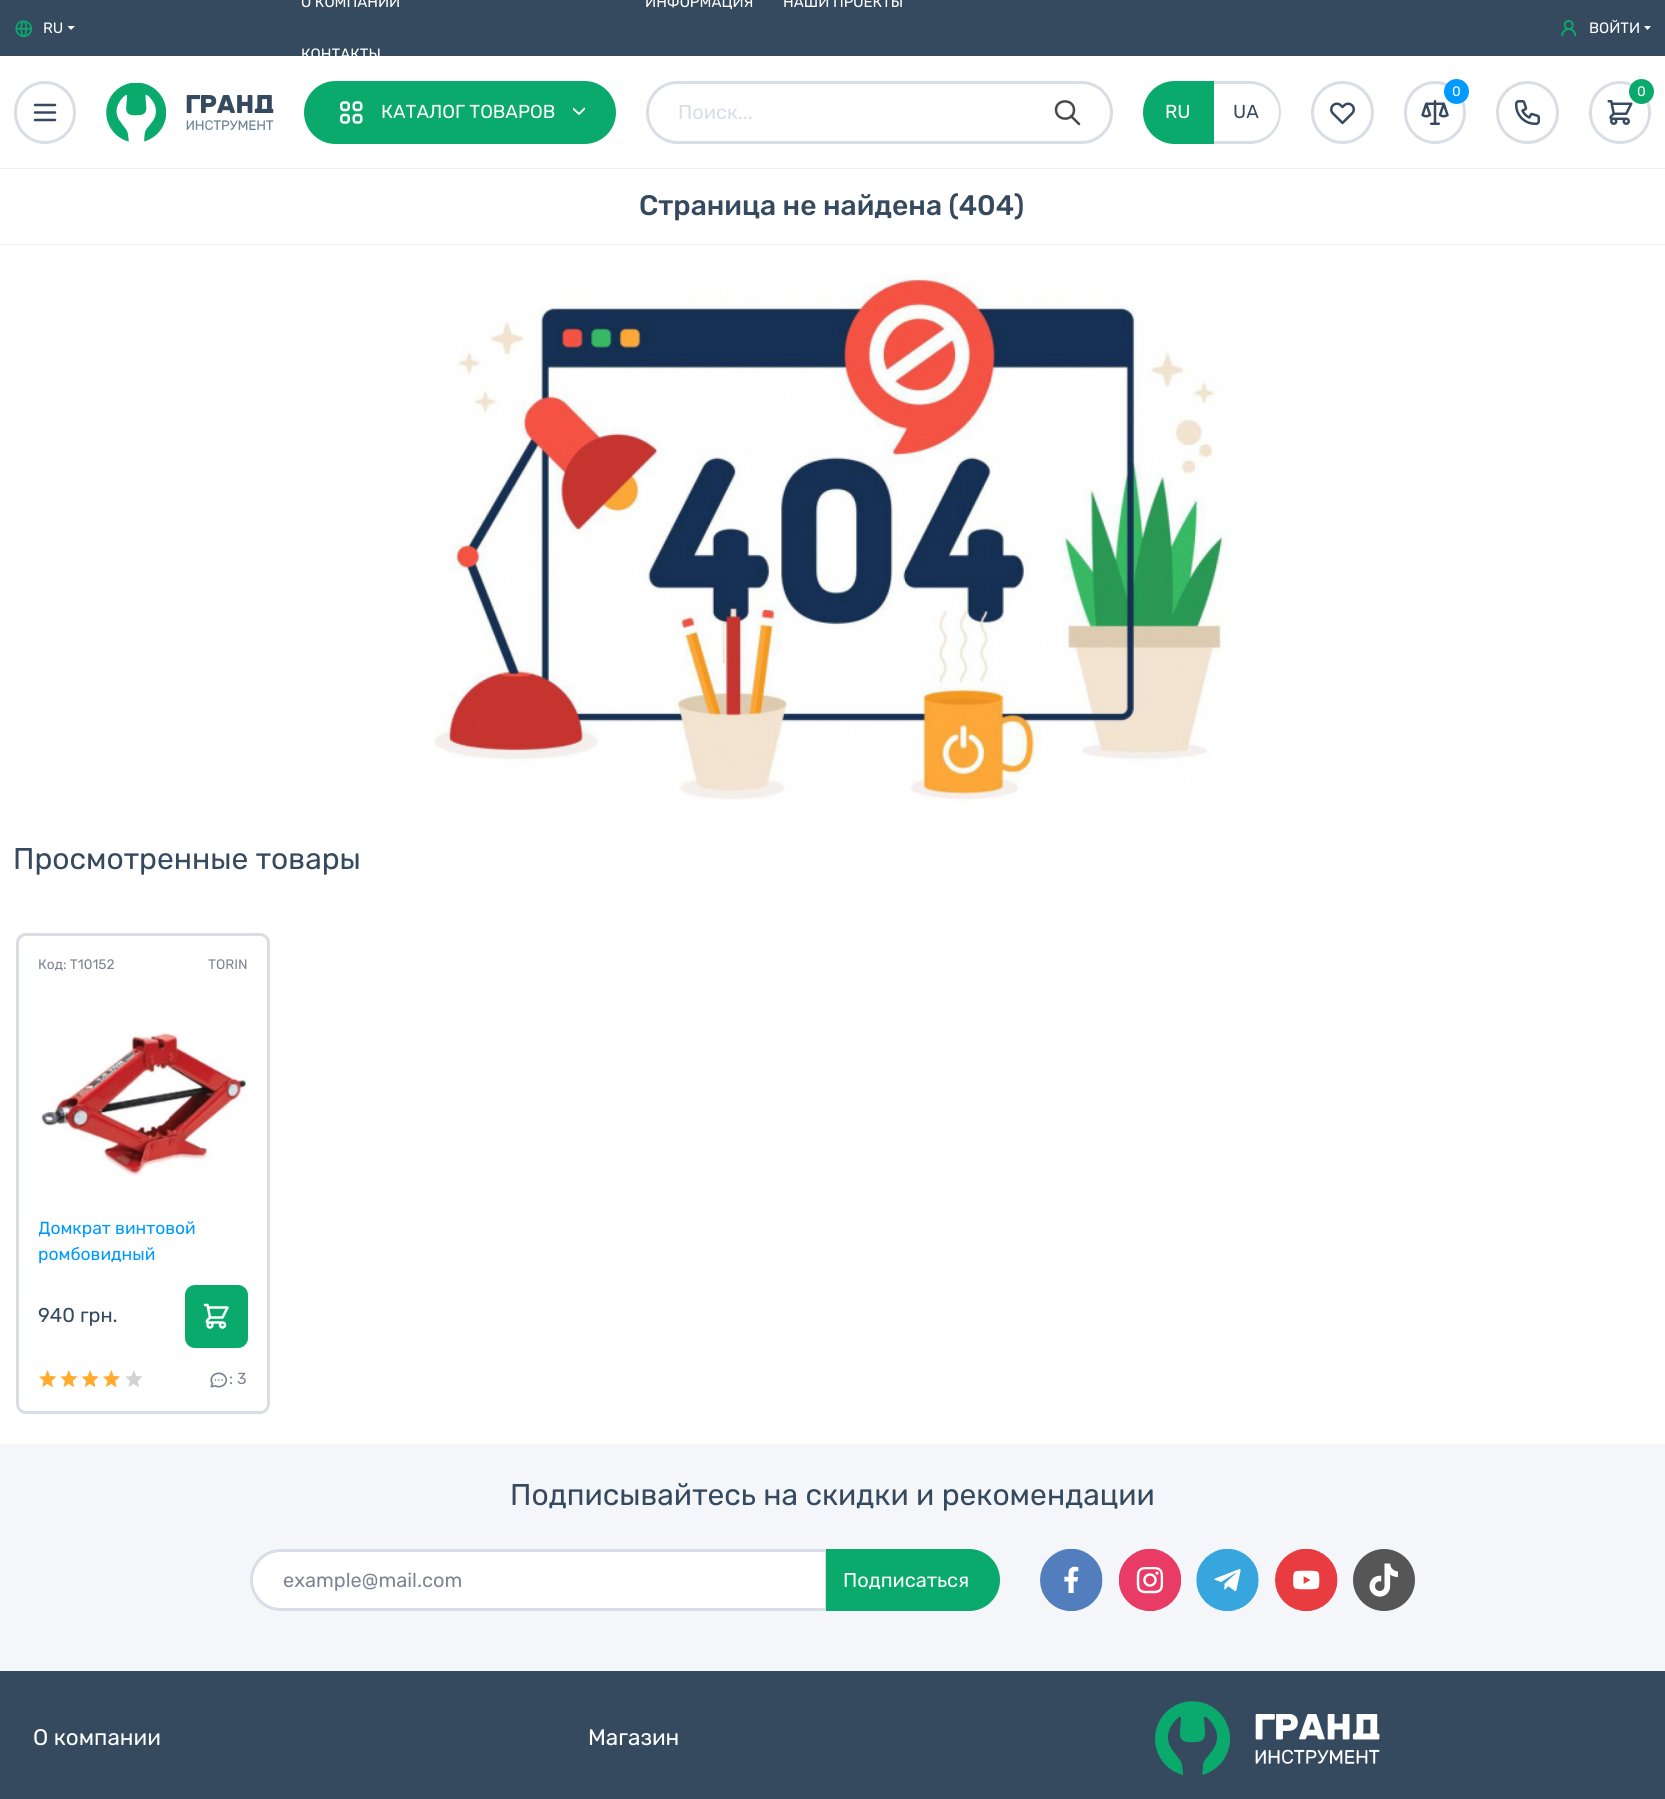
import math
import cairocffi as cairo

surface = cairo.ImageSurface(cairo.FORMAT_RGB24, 1665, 1799)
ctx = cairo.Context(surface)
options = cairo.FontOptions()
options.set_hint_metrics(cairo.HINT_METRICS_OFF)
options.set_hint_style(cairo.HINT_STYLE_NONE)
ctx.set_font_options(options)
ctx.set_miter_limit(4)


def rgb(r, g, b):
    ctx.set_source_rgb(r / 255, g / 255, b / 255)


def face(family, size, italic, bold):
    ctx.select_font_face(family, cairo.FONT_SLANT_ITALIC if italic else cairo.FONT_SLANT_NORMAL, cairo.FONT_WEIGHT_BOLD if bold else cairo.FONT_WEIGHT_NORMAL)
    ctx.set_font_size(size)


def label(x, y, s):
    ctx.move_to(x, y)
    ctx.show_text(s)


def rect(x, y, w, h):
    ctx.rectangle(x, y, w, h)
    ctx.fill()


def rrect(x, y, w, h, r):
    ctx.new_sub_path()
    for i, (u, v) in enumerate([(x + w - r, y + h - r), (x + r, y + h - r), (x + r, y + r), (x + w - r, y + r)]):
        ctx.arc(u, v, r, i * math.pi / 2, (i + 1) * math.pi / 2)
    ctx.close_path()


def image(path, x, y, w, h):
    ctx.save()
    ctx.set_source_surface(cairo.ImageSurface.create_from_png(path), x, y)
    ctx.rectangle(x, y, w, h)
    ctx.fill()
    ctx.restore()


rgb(255, 255, 255)
ctx.paint()
rgb(53, 74, 95)
rect(0, 0, 1665, 56)
image('image0.png', 15, 20, 18, 18)
face('Rubik', 15, 0, 0)
rgb(255, 255, 255)
label(43, 33, 'RU')
ctx.new_path()
ctx.move_to(67.5, 26)
ctx.line_to(75, 26)
ctx.line_to(71, 30)
ctx.close_path()
ctx.fill()
label(301, 7, 'О КОМПАНИИ')
label(645, 7, 'ИНФОРМАЦИЯ')
label(783, 7, 'НАШИ ПРОЕКТЫ')
label(301, 59, 'КОНТАКТЫ')
image('image1.png', 1561, 20, 16, 17)
label(1589, 33, 'ВОЙТИ')
ctx.new_path()
ctx.move_to(1644, 26)
ctx.line_to(1651, 26)
ctx.line_to(1647.5, 30)
ctx.close_path()
ctx.fill()
rgb(236, 239, 245)
rect(0, 168, 1665, 1)
ctx.arc(1342.5, 112.5, 30, 0, 2 * math.pi)
rgb(216, 221, 230)
ctx.set_line_width(3)
ctx.stroke()
image('image2.png', 1330, 102, 25, 23)
rrect(1405.5, 82.5, 59, 60, 29.5)
ctx.stroke()
image('image3.png', 1421, 100, 28, 25)
rgb(0, 153, 255)
ctx.arc(1456.5, 91.5, 12.5, 0, 2 * math.pi)
ctx.fill()
face('Rubik', 13.75, 0, 0)
rgb(255, 255, 255)
label(1452, 96, '0')
ctx.new_path()
ctx.arc(1527.5, 112.5, 30, 0, 2 * math.pi)
rgb(216, 221, 230)
ctx.stroke()
image('image4.png', 1515, 100, 25, 25)
rrect(1590.5, 82.5, 59, 60, 29.5)
ctx.stroke()
image('image5.png', 1607, 100, 26, 25)
rgb(10, 170, 108)
ctx.arc(1641.5, 91.5, 12.5, 0, 2 * math.pi)
ctx.fill()
rgb(255, 255, 255)
label(1637, 96, '0')
rrect(15.5, 82.5, 59, 60, 29.5)
rgb(216, 221, 230)
ctx.stroke()
ctx.new_path()
ctx.move_to(35, 105)
ctx.line_to(55, 105)
ctx.move_to(35, 112.5)
ctx.line_to(55, 112.5)
ctx.move_to(35, 120)
ctx.line_to(55, 120)
rgb(53, 74, 95)
ctx.set_line_width(2.5)
ctx.set_line_cap(cairo.LINE_CAP_ROUND)
ctx.set_line_join(cairo.LINE_JOIN_ROUND)
ctx.stroke()
image('image6.png', 106, 83, 60, 59)
image('image7.png', 186, 95, 88, 35)
rgb(10, 170, 108)
rrect(305.5, 82.5, 309, 60, 30)
ctx.fill_preserve()
ctx.set_line_width(3)
ctx.set_line_cap(cairo.LINE_CAP_BUTT)
ctx.set_line_join(cairo.LINE_JOIN_MITER)
ctx.stroke()
image('image8.png', 340, 101, 23, 23)
face('Rubik', 18.75, 0, 0)
rgb(255, 255, 255)
label(381, 118, 'КАТАЛОГ ТОВАРОВ')
ctx.save()
ctx.rectangle(573, 105, 12, 13)
ctx.clip()
ctx.new_path()
ctx.move_to(573, 108.5)
ctx.line_to(579, 114)
ctx.line_to(584.5, 108.5)
ctx.set_line_width(1.9)
ctx.set_line_cap(cairo.LINE_CAP_ROUND)
ctx.set_line_join(cairo.LINE_JOIN_ROUND)
ctx.stroke()
ctx.restore()
rrect(647.5, 82.5, 464, 60, 30)
rgb(216, 221, 230)
ctx.stroke()
face('Rubik', 20, 0, 0)
label(678, 119, 'Поиск...')
ctx.new_path()
ctx.move_to(1079, 124)
ctx.line_to(1071, 116)
ctx.move_to(1074, 110)
ctx.curve_to(1074, 121.5, 1056.5, 121.5, 1056, 110)
ctx.curve_to(1056, 98.5, 1074, 98.5, 1074, 110)
ctx.close_path()
rgb(73, 73, 73)
ctx.set_line_width(2.5)
ctx.set_line_cap(cairo.LINE_CAP_ROUND)
ctx.set_line_join(cairo.LINE_JOIN_ROUND)
ctx.stroke()
rgb(10, 170, 108)
ctx.new_path()
ctx.move_to(1174.5, 82.5)
ctx.line_to(1212.5, 82.5)
ctx.line_to(1212.5, 142.5)
ctx.line_to(1174.5, 142.5)
ctx.curve_to(1158, 142.5, 1144.5, 129, 1144.5, 112.5)
ctx.curve_to(1144.5, 96, 1158, 82.5, 1174.5, 82.5)
ctx.close_path()
ctx.fill_preserve()
ctx.set_line_width(3)
ctx.set_line_cap(cairo.LINE_CAP_BUTT)
ctx.set_line_join(cairo.LINE_JOIN_MITER)
ctx.stroke()
face('Rubik', 18.75, 0, 0)
rgb(255, 255, 255)
label(1165, 118, 'RU')
rgb(216, 221, 230)
ctx.set_fill_rule(cairo.FILL_RULE_EVEN_ODD)
ctx.new_path()
ctx.move_to(1214, 81)
ctx.line_to(1250, 81)
ctx.curve_to(1267, 81, 1281, 95, 1281, 112)
ctx.curve_to(1281, 130, 1267, 144, 1250, 144)
ctx.line_to(1214, 144)
ctx.close_path()
ctx.move_to(1214, 84)
ctx.line_to(1250, 84)
ctx.curve_to(1266, 84, 1279, 97, 1279, 112)
ctx.curve_to(1279, 128, 1266, 141, 1250, 141)
ctx.line_to(1214, 141)
ctx.close_path()
ctx.fill()
rgb(53, 74, 95)
label(1233, 118, 'UA')
rgb(236, 239, 245)
rect(0, 244, 1665, 1)
face('Rubik Medium', 28.25, 0, 0)
rgb(53, 74, 95)
label(639, 215, 'Страница не найдена (404)')
image('image9.png', 434, 275, 795, 530)
face('Rubik', 30, 0, 0)
label(13, 869, 'Просмотренные товары')
rrect(17.5, 934.5, 251, 478, 8.5)
rgb(216, 221, 230)
ctx.stroke()
face('Rubik', 13.75, 0, 0)
rgb(127, 132, 146)
label(38, 969, 'Код: T10152')
label(208, 969, 'TORIN')
image('image10.png', 39, 1032, 208, 144)
ctx.save()
ctx.set_fill_rule(cairo.FILL_RULE_WINDING)
ctx.rectangle(39, 1215, 209, 50)
ctx.clip()
face('Rubik', 17.5, 0, 0)
rgb(0, 153, 255)
label(38, 1234, 'Домкрат винтовой')
ctx.restore()
face('Rubik', 17.5, 0, 0)
rgb(0, 153, 255)
label(38, 1260, 'ромбовидный')
face('Rubik', 20, 0, 0)
rgb(53, 74, 95)
label(38, 1322, '940 грн.')
rgb(10, 170, 108)
rrect(185, 1285, 63, 63, 10)
ctx.fill()
image('image11.png', 203, 1303, 26, 26)
image('image12.png', 39, 1370, 17, 18)
image('image13.png', 60, 1370, 18, 18)
image('image14.png', 81, 1370, 18, 18)
image('image15.png', 103, 1370, 17, 18)
image('image16.png', 125, 1370, 17, 17)
image('image17.png', 210, 1372, 18, 16)
face('Rubik', 16, 0, 0)
rgb(127, 132, 146)
label(229, 1384, ': 3')
rgb(244, 246, 249)
rect(0, 1444, 1665, 227)
face('Rubik', 30, 0, 0)
rgb(53, 74, 95)
label(510, 1505, 'Подписывайтесь на скидки и рекомендации')
rgb(255, 255, 255)
ctx.new_path()
ctx.move_to(281, 1550.5)
ctx.line_to(826.5, 1550.5)
ctx.line_to(826.5, 1609.5)
ctx.line_to(281, 1609.5)
ctx.curve_to(264.5, 1609.5, 251.5, 1596.5, 251.5, 1580)
ctx.curve_to(251.5, 1563.5, 264.5, 1550.5, 281, 1550.5)
ctx.close_path()
ctx.fill_preserve()
rgb(216, 221, 230)
ctx.stroke()
face('Rubik', 20, 0, 0)
rgb(127, 132, 146)
label(283, 1587, 'example@mail.com')
rgb(10, 170, 108)
ctx.new_path()
ctx.move_to(826.5, 1549.5)
ctx.line_to(969, 1549.5)
ctx.curve_to(986, 1549.5, 999.5, 1563, 999.5, 1580)
ctx.curve_to(999.5, 1597, 986, 1610.5, 969, 1610.5)
ctx.line_to(826.5, 1610.5)
ctx.close_path()
ctx.fill_preserve()
ctx.set_line_width(1)
ctx.stroke()
rgb(255, 255, 255)
label(843, 1587, 'Подписаться')
image('image18.png', 1040, 1549, 63, 62)
image('image19.png', 1119, 1549, 62, 62)
image('image20.png', 1196, 1549, 63, 62)
image('image21.png', 1275, 1549, 63, 62)
image('image22.png', 1353, 1549, 62, 62)
rgb(53, 74, 95)
rect(0, 1671, 1665, 128)
face('Rubik', 22.5, 0, 0)
rgb(255, 255, 255)
label(33, 1745, 'О компании')
label(588, 1745, 'Магазин')
image('image23.png', 1155, 1701, 75, 74)
image('image24.png', 1255, 1714, 125, 50)
surface.write_to_png('render.png')
